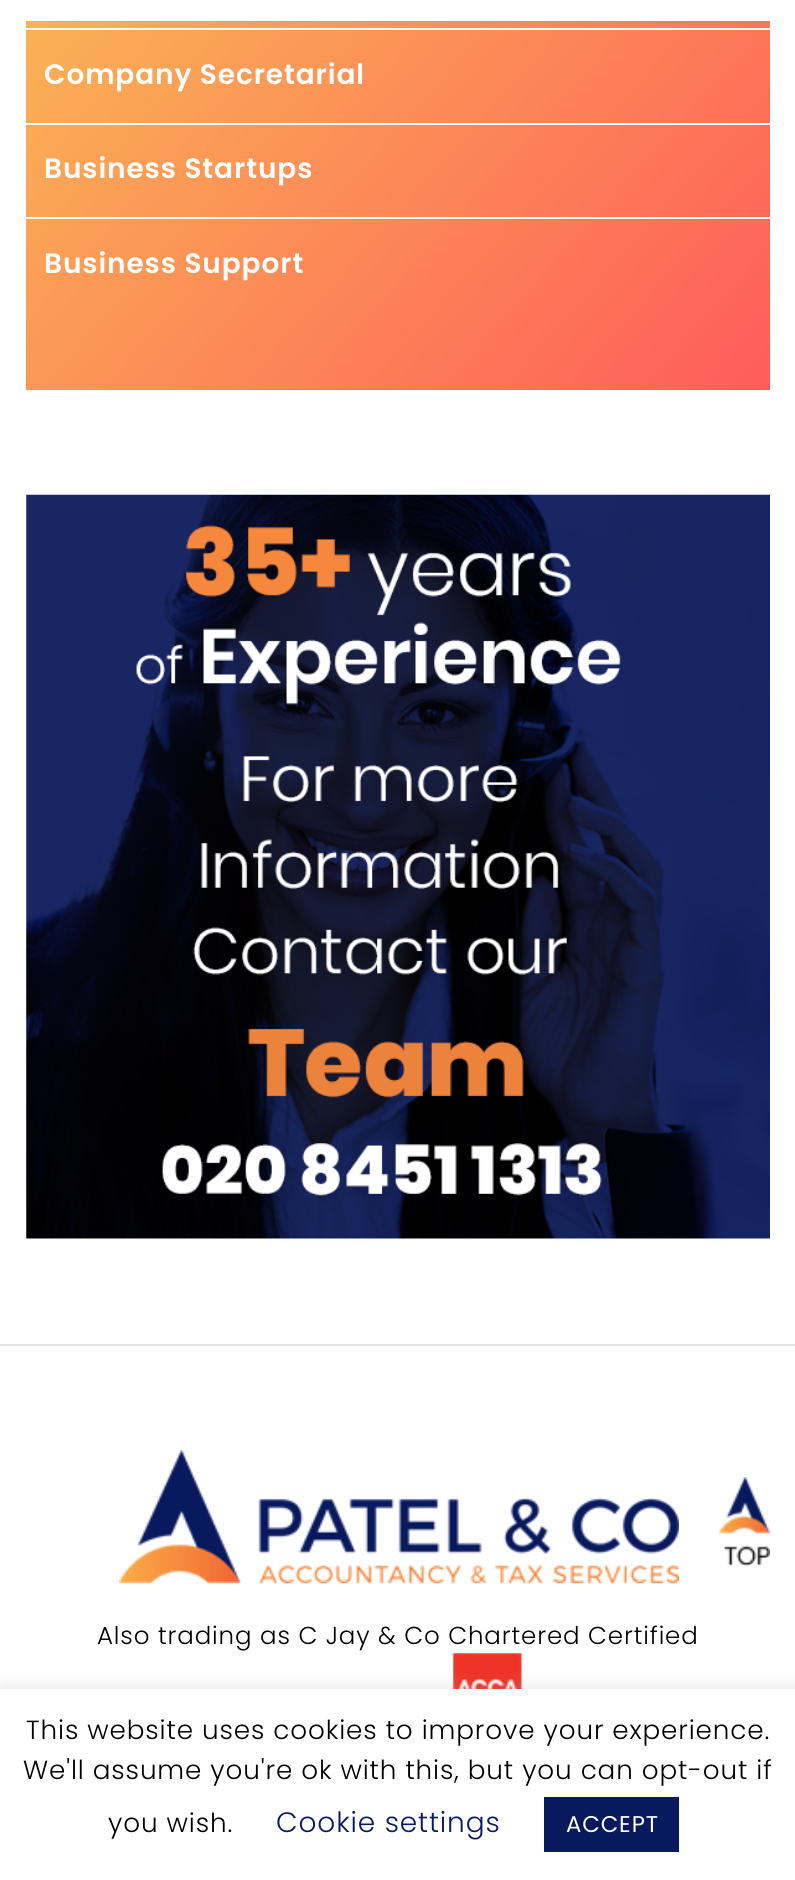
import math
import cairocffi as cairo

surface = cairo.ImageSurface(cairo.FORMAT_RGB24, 795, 1880)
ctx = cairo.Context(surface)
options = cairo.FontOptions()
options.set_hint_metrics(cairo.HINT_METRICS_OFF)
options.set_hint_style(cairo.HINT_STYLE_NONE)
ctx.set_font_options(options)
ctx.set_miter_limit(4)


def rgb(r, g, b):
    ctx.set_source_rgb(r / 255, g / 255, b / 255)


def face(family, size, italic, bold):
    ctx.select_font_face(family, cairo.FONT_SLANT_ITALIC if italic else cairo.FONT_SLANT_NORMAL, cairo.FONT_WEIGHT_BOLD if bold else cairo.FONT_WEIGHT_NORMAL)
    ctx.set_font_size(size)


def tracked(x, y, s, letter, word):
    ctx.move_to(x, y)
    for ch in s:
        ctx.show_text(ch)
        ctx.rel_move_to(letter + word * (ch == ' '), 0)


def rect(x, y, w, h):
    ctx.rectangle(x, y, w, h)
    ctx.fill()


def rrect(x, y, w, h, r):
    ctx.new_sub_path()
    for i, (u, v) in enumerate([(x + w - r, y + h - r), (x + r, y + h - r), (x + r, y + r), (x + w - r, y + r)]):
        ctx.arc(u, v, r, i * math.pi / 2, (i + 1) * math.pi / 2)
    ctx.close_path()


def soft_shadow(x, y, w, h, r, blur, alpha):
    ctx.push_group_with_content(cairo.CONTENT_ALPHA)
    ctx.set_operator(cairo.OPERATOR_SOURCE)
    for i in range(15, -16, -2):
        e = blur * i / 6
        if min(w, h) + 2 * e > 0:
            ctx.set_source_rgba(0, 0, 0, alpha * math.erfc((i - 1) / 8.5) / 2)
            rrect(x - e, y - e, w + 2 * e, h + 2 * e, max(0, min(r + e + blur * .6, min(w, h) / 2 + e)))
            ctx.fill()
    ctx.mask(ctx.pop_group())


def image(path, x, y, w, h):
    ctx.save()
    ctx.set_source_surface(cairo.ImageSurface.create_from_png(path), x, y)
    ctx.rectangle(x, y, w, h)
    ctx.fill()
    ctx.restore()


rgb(255, 255, 255)
ctx.paint()
rgb(228, 228, 228)
rect(0, 1344, 795, 2)
gradient = cairo.LinearGradient(-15, -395, 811, 344)
gradient.add_color_stop_rgba(0, 0.973, 0.827, 0.325, 1)
gradient.add_color_stop_rgba(1, 1, 0.361, 0.353, 1)
ctx.set_source(gradient)
rect(26, 21, 744, 369)
rgb(255, 255, 255)
rect(26, 28, 744, 2)
rect(26, 123, 744, 2)
face('Poppins SemiBold', 28, 0, 0)
tracked(44, 84, 'Company Secretarial', 0.88, 0)
rect(26, 217, 744, 2)
tracked(44, 178, 'Business Startups', 0.88, 0)
tracked(44, 273, 'Business Support', 0.88, 0)
image('image0.png', 26, 494, 744, 745)
image('image1.png', 718, 1477, 52, 90)
image('image2.png', 119, 1450, 560, 134)
face('Poppins Light', 24.5, 0, 0)
rgb(0, 0, 0)
tracked(97, 1644, 'Also trading as C Jay & Co Chartered Certified', 0.88, 0)
image('image3.png', 453, 1653, 69, 36)
rgb(172, 171, 171)
soft_shadow(0, 1687, 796, 193, 0, 9, 0.3)
rgb(255, 255, 255)
rect(0, 1689, 795, 191)
face('Poppins Light', 26.25, 0, 0)
rgb(0, 0, 0)
tracked(26, 1739, 'This website uses cookies to improve your experience.', 0.88, 0)
tracked(23, 1779, 'We\'ll assume you\'re ok with this, but you can opt-out if', 0.88, 0)
tracked(108, 1832, 'you wish.', 0.88, 0)
face('Poppins Light', 28, 0, 0)
rgb(9, 25, 93)
tracked(276, 1832, 'Cookie settings', 0.88, 0)
rect(544, 1797, 135, 55)
face('Poppins', 22.75, 0, 0)
rgb(255, 255, 255)
tracked(566, 1832, 'ACCEPT', 0.88, 0)
surface.write_to_png('render.png')
